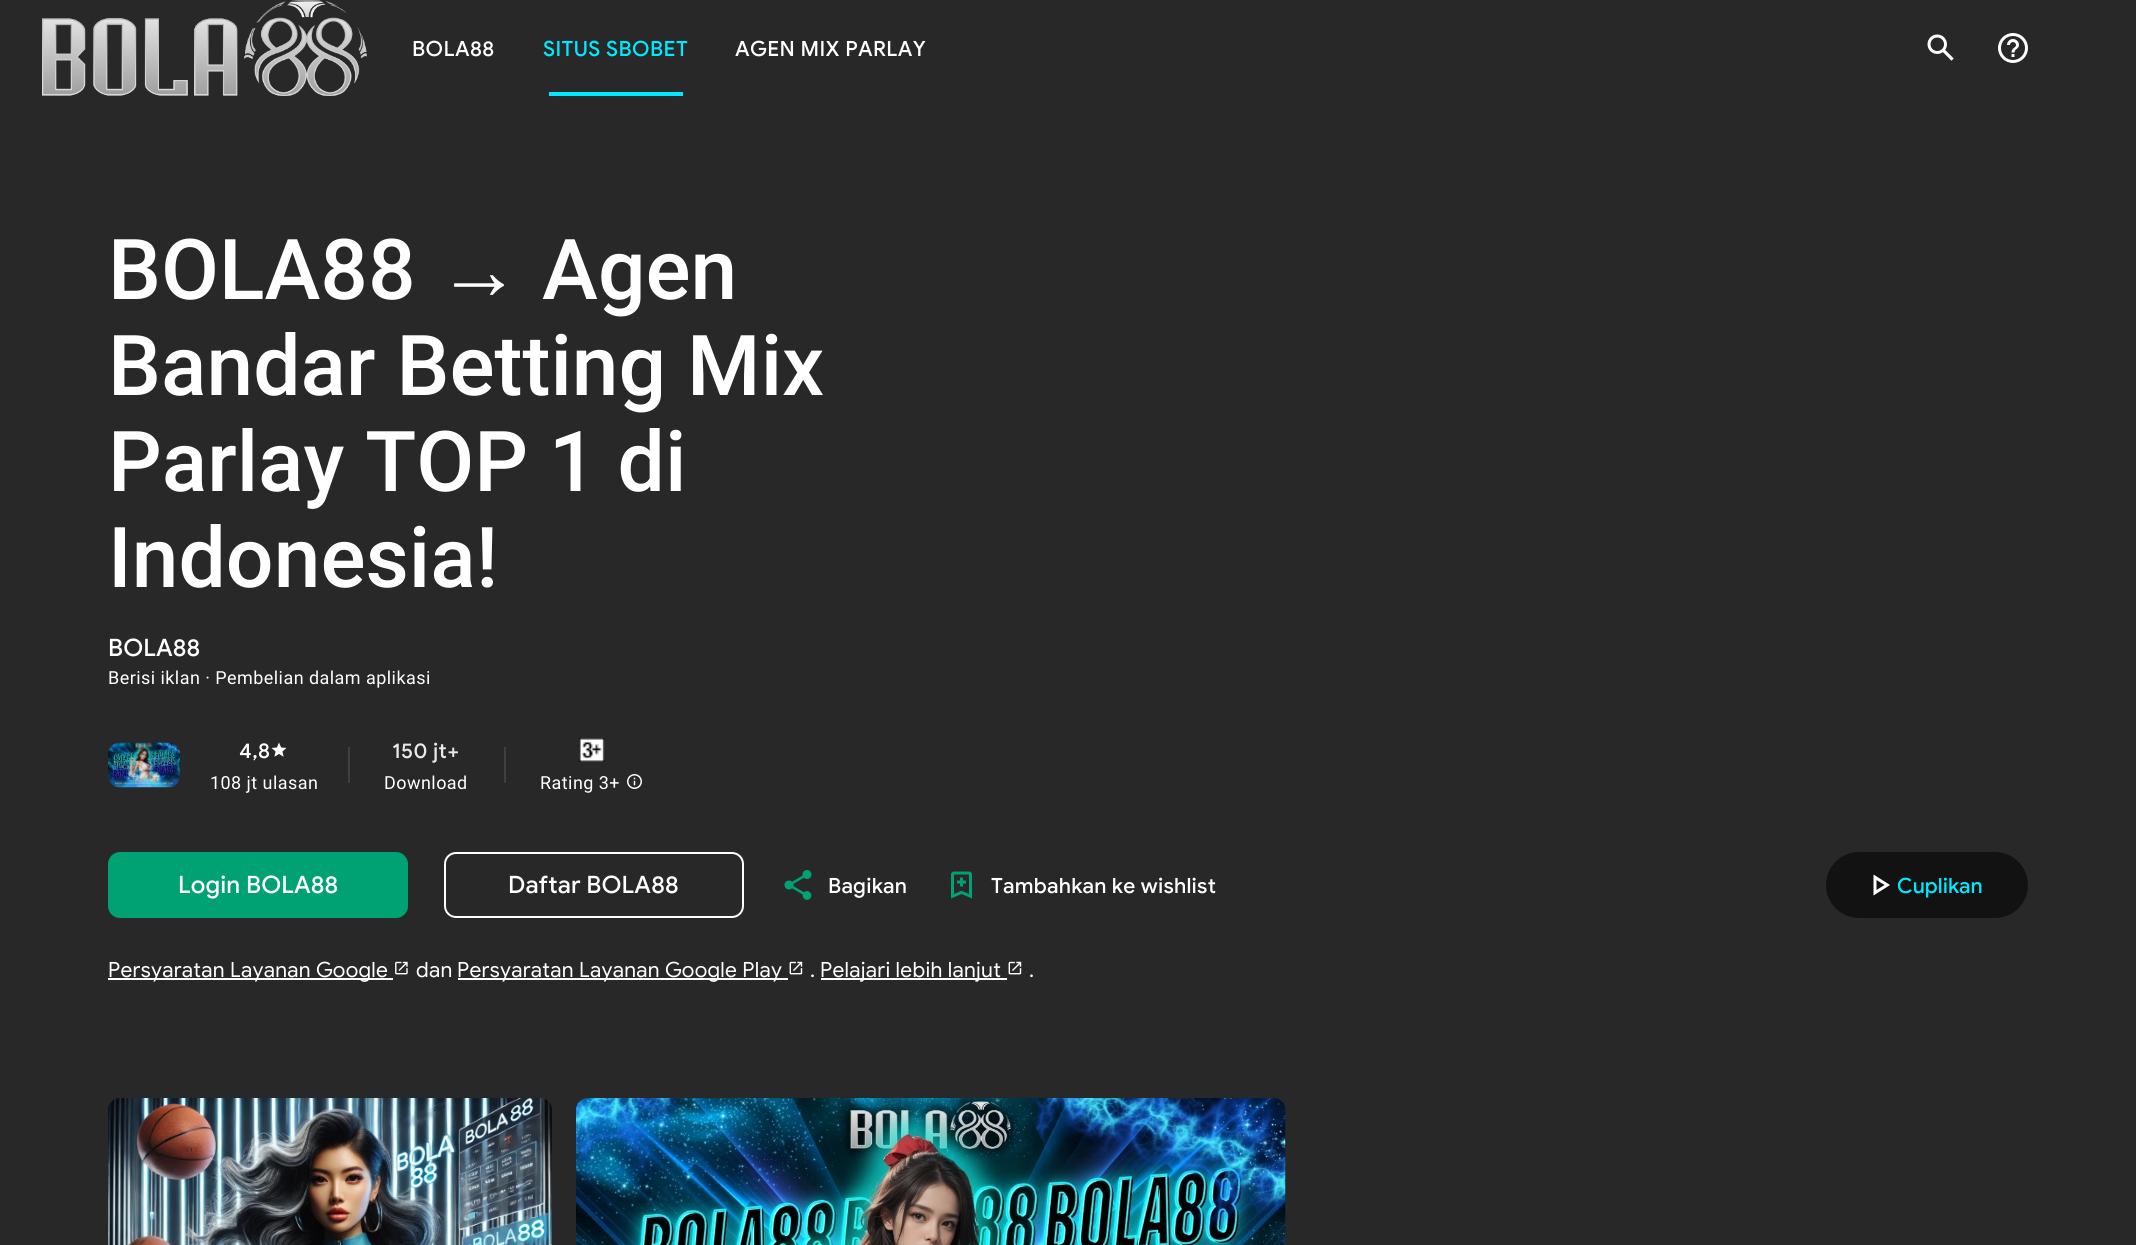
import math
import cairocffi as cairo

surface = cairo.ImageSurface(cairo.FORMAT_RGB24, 2136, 1245)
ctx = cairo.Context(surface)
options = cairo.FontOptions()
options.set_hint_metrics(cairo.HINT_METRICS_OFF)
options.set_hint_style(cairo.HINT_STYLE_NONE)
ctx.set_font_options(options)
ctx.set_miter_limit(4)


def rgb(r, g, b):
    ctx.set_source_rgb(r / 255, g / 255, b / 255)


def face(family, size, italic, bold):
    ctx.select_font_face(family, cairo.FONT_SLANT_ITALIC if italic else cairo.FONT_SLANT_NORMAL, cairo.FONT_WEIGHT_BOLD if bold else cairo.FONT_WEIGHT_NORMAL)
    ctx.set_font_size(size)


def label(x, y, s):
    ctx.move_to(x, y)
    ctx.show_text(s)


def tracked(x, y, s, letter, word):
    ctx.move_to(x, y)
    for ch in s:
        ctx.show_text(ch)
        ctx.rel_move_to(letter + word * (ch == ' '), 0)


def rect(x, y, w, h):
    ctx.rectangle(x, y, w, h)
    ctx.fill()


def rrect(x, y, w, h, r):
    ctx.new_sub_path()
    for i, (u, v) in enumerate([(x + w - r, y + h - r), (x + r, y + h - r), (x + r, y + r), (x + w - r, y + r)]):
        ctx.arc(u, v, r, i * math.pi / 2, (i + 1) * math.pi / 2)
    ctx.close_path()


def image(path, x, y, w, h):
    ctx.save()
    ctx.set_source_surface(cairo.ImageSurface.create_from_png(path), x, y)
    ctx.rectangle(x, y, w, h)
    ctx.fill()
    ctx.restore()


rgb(40, 40, 40)
ctx.paint()
image('image0.png', 42, 0, 325, 96)
face('Google Sans Medium', 21, 0, 0)
rgb(255, 255, 255)
tracked(412, 56, 'BOLA88', 0.4, 0)
rgb(0, 234, 255)
tracked(543, 56, 'SITUS SBOBET', 0.4, 0)
rect(549, 92, 134, 4)
rgb(255, 255, 255)
tracked(735, 56, 'AGEN MIX PARLAY', 0.4, 0)
image('image1.png', 1927, 34, 27, 27)
image('image2.png', 1998, 33, 30, 30)
face('Roboto Medium', 84, 0, 0)
label(108, 299, 'BOLA88')
face('Liberation Sans', 84, 0, 0)
label(437, 299, '→')
face('Roboto Medium', 84, 0, 0)
label(542, 299, 'Agen')
label(108, 395, 'Bandar Betting Mix')
label(108, 491, 'Parlay TOP 1 di')
label(108, 587, 'Indonesia!')
face('Google Sans Medium', 24, 0, 0)
tracked(108, 656, 'BOLA88', 0.1, 0)
face('Roboto', 18, 0, 0)
tracked(108, 684, 'Berisi iklan · Pembelian dalam aplikasi', 0.45, 0)
image('image3.png', 108, 742, 72, 46)
face('Google Sans Medium', 21, 0, 0)
tracked(239, 758, '4,8', 0.4, 0)
image('image4.png', 271, 742, 16, 15)
face('Roboto', 18, 0, 0)
tracked(210, 789, '108 jt ulasan', 0.45, 0)
rgb(60, 64, 67)
rect(348, 747, 2, 36)
face('Google Sans Medium', 21, 0, 0)
rgb(232, 234, 237)
tracked(392, 758, '150 jt+', 0.4, 0)
face('Roboto', 18, 0, 0)
rgb(255, 255, 255)
tracked(384, 789, 'Download', 0.45, 0)
rgb(60, 64, 67)
rect(504, 747, 2, 36)
image('image5.png', 579, 738, 26, 24)
rgb(255, 255, 255)
tracked(540, 789, 'Rating 3+', 0.45, 0)
image('image6.png', 627, 774, 15, 15)
rgb(0, 161, 115)
rrect(108, 852, 300, 66, 12)
ctx.fill()
face('Google Sans Medium', 24, 0, 0)
rgb(255, 255, 255)
tracked(178, 893, 'Login BOLA88', 0.1, 0)
rrect(445, 853, 298, 64, 11)
ctx.stroke()
tracked(508, 893, 'Daftar BOLA88', 0.1, 0)
image('image7.png', 784, 870, 28, 30)
face('Google Sans Medium', 21, 0, 0)
tracked(828, 893, 'Bagikan', 0.25, 0)
image('image8.png', 951, 871, 21, 28)
tracked(991, 893, 'Tambahkan ke wishlist', 0.25, 0)
rgb(18, 18, 18)
rrect(1826, 852, 202, 66, 33)
ctx.fill()
rgb(255, 255, 255)
ctx.new_path()
ctx.move_to(1876.5, 880)
ctx.line_to(1884.5, 885)
ctx.line_to(1876.5, 890)
ctx.close_path()
ctx.move_to(1873.5, 874.5)
ctx.line_to(1873.5, 895.5)
ctx.line_to(1890, 885)
ctx.close_path()
ctx.fill()
rgb(0, 234, 255)
label(1897, 893, 'Cuplikan')
rgb(255, 255, 255)
rect(108, 978, 285, 2)
face('Google Sans', 21, 0, 0)
tracked(108, 977, 'Persyaratan Layanan Google', 0.3, 0)
image('image9.png', 395, 961, 13, 14)
tracked(416, 977, 'dan', 0.3, 0)
rect(458, 978, 330, 2)
tracked(457, 977, 'Persyaratan Layanan Google Play', 0.3, 0)
image('image10.png', 789, 961, 14, 14)
tracked(810, 977, '.', 0.3, 0)
rect(821, 978, 186, 2)
tracked(820, 977, 'Pelajari lebih lanjut', 0.3, 0)
image('image10.png', 1008, 961, 14, 14)
tracked(1029, 977, '.', 0.3, 0)
image('image11.png', 108, 1098, 444, 147)
image('image12.png', 576, 1098, 710, 147)
surface.write_to_png('render.png')
